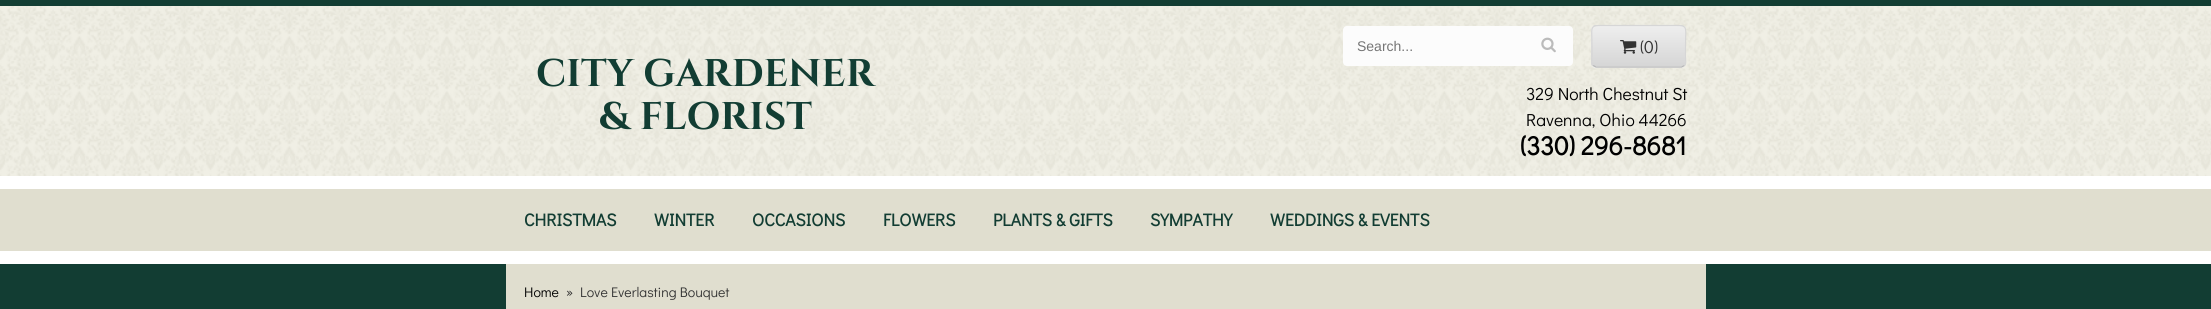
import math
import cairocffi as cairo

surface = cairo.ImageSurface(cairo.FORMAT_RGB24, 2211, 309)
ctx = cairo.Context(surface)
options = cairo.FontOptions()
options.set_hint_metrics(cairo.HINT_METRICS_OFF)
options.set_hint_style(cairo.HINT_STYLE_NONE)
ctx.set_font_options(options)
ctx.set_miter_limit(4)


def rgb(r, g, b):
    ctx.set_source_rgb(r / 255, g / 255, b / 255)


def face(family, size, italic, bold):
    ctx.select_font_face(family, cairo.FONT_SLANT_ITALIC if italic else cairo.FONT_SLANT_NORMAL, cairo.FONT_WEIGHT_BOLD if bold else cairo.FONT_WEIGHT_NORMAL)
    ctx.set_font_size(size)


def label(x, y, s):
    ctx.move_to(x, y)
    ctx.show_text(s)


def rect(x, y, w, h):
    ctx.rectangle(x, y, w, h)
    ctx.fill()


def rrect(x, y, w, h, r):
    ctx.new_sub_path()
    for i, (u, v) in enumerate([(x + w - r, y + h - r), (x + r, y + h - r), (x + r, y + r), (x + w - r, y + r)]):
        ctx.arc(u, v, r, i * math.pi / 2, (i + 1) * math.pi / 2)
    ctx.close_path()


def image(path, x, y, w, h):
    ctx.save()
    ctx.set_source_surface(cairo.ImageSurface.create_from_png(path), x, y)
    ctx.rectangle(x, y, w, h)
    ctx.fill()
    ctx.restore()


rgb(18, 61, 51)
ctx.paint()
image('image0.png', 0, 6, 2211, 170)
rgb(252, 252, 252)
rrect(1343, 26, 230, 40, 4)
ctx.fill()
face('Liberation Sans', 14, 0, 0)
rgb(117, 117, 117)
label(1357, 51, 'Search...')
image('image1.png', 1541, 37, 15, 16)
ctx.save()
rrect(1591, 25, 95, 43, 5)
ctx.clip()
gradient = cairo.LinearGradient(1639, -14, 1639, 26)
gradient.add_color_stop_rgba(0, 0.933, 0.933, 0.933, 1)
gradient.add_color_stop_rgba(1, 0.839, 0.839, 0.839, 1)
ctx.set_source(gradient)
rect(1591, 25, 95, 1)
gradient = cairo.LinearGradient(1639, 26, 1639, 66)
gradient.add_color_stop_rgba(0, 0.933, 0.933, 0.933, 1)
gradient.add_color_stop_rgba(1, 0.839, 0.839, 0.839, 1)
ctx.set_source(gradient)
rect(1591, 26, 95, 40)
gradient = cairo.LinearGradient(1639, 66, 1639, 106)
gradient.add_color_stop_rgba(0, 0.933, 0.933, 0.933, 1)
gradient.add_color_stop_rgba(1, 0.839, 0.839, 0.839, 1)
ctx.set_source(gradient)
rect(1591, 66, 95, 2)
ctx.restore()
ctx.new_path()
ctx.move_to(1684.5, 65.5)
ctx.line_to(1681.5, 67)
ctx.line_to(1596, 67)
ctx.line_to(1593, 65.5)
rgb(182, 182, 182)
ctx.set_line_width(1.2)
ctx.stroke()
ctx.new_path()
ctx.move_to(1593, 65.5)
ctx.curve_to(1591, 63.5, 1592, 59.5, 1592, 57)
ctx.line_to(1592, 46)
ctx.curve_to(1592, 23.5, 1588, 25.5, 1610.5, 25.5)
ctx.line_to(1667, 25.5)
ctx.curve_to(1689.5, 25.5, 1685.5, 23.5, 1685.5, 46)
ctx.line_to(1685.5, 57)
ctx.curve_to(1685.5, 59.5, 1686.5, 63.5, 1684.5, 65.5)
rgb(214, 214, 214)
ctx.stroke()
image('image2.png', 1620, 40, 17, 14)
face('Didact Gothic', 17.5, 0, 0)
rgb(51, 51, 51)
label(1640, 53, '(0)')
face('Cinzel', 38.5, 0, 1)
rgb(18, 61, 51)
label(536, 86, 'CITY GARDENER')
label(599, 129, '& FLORIST')
face('Didact Gothic', 17.5, 0, 0)
rgb(0, 0, 0)
label(1526, 100, '329 North Chestnut St')
label(1526, 126, 'Ravenna, Ohio 44266')
face('Didact Gothic', 26.25, 0, 1)
label(1520, 155, '(330) 296-8681')
rgb(224, 222, 207)
rect(0, 189, 2211, 62)
rgb(255, 255, 255)
rect(0, 176, 2211, 13)
rect(0, 251, 2211, 13)
face('Didact Gothic', 17.5, 0, 1)
rgb(18, 61, 51)
label(524, 226, 'CHRISTMAS')
label(654, 226, 'WINTER')
label(752, 226, 'OCCASIONS')
label(883, 226, 'FLOWERS')
label(993, 226, 'PLANTS & GIFTS')
label(1150, 226, 'SYMPATHY')
label(1270, 226, 'WEDDINGS & EVENTS')
rgb(224, 222, 207)
rect(506, 264, 1200, 45)
face('Didact Gothic', 14, 0, 0)
rgb(0, 0, 0)
label(524, 297, 'Home')
rgb(51, 51, 51)
label(566, 297, '»')
label(580, 297, 'Love Everlasting Bouquet')
surface.write_to_png('render.png')
